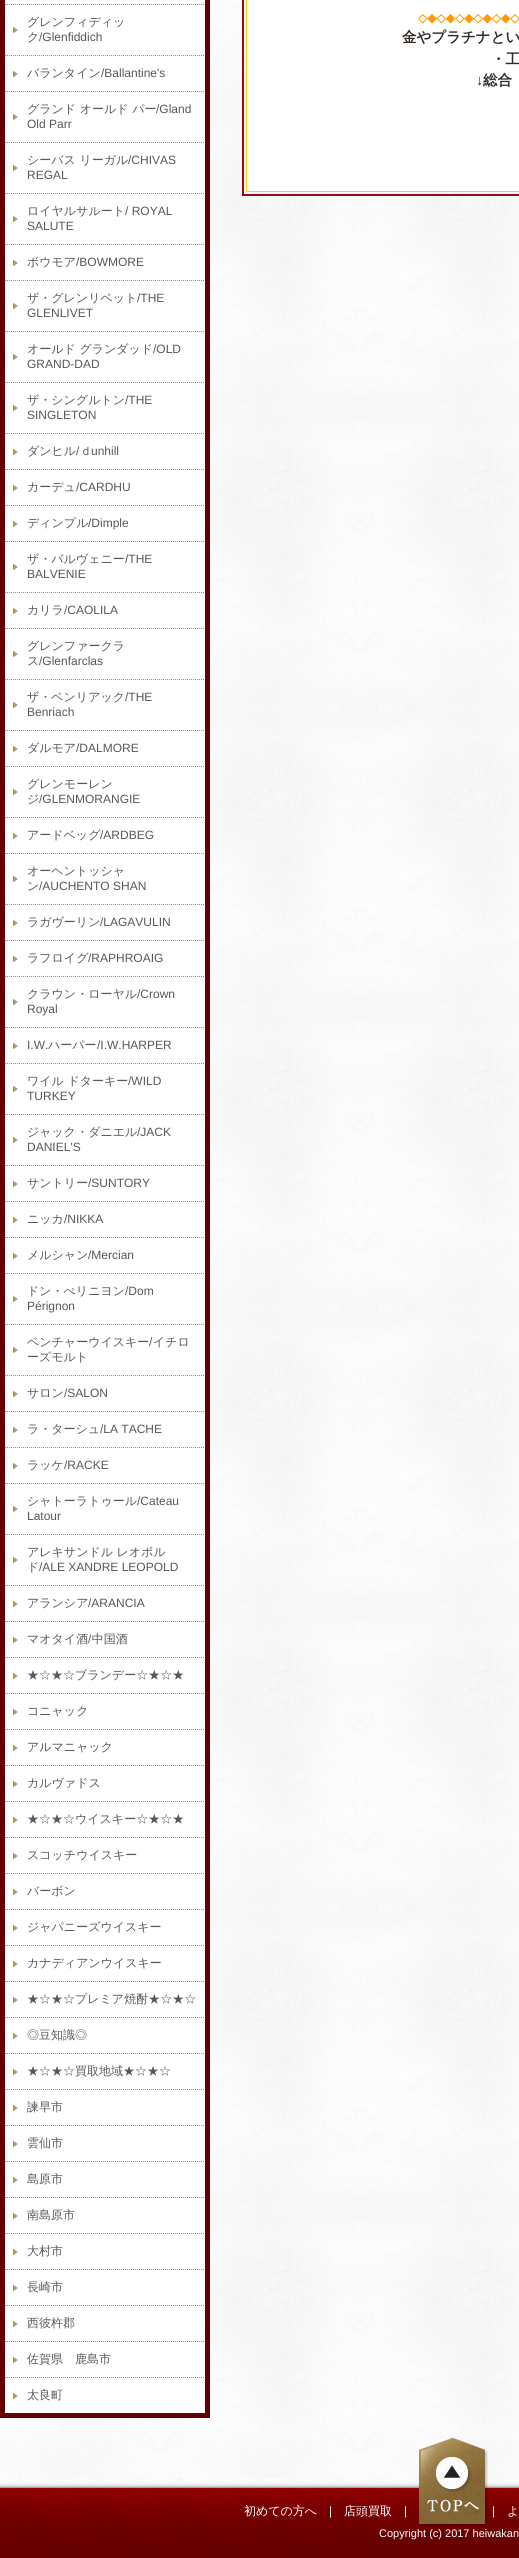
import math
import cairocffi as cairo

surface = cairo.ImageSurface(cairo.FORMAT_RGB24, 519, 2558)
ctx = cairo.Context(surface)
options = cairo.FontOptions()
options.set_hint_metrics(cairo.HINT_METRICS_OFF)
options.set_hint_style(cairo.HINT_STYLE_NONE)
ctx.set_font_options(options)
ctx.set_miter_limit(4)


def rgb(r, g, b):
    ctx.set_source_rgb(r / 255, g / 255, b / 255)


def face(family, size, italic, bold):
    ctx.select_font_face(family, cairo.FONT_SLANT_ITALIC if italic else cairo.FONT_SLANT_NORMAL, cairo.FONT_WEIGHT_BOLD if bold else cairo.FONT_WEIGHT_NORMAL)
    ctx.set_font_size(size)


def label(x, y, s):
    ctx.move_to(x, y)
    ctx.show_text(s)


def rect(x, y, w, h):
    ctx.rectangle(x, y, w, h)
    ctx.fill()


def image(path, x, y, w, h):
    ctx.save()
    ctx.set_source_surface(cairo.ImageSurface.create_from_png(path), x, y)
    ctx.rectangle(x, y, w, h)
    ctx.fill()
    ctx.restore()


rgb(255, 255, 255)
ctx.paint()
image('image0.png', 0, 0, 519, 2478)
image('image1.png', 0, 0, 210, 2418)
rgb(255, 255, 255)
rect(5, 0, 200, 1982)
ctx.new_path()
ctx.move_to(5, 4.5)
ctx.line_to(205, 4.5)
rgb(178, 130, 71)
ctx.set_line_width(1)
ctx.set_dash([1, 1])
ctx.stroke()
image('image2.png', 13, 27, 5, 6)
ctx.new_path()
ctx.move_to(5, 55.5)
ctx.line_to(205, 55.5)
ctx.stroke()
face('WenQuanYi Zen Hei Medium', 12, 0, 0)
rgb(89, 87, 87)
label(27, 26, 'グレンフィディッ')
label(27, 41, 'ク')
face('Liberation Sans', 12, 0, 0)
label(39, 41, '/Glenfiddich')
image('image2.png', 13, 71, 5, 6)
ctx.new_path()
ctx.move_to(5, 91.5)
ctx.line_to(205, 91.5)
rgb(178, 130, 71)
ctx.stroke()
face('WenQuanYi Zen Hei Medium', 12, 0, 0)
rgb(89, 87, 87)
label(27, 77, 'バランタイン')
face('Liberation Sans', 12, 0, 0)
label(101, 77, '/Ballantine\'s')
image('image2.png', 13, 114, 5, 6)
ctx.new_path()
ctx.move_to(5, 142.5)
ctx.line_to(205, 142.5)
rgb(178, 130, 71)
ctx.stroke()
face('WenQuanYi Zen Hei Medium', 12, 0, 0)
rgb(89, 87, 87)
label(27, 113, 'グランド オールド パー')
face('Liberation Sans', 12, 0, 0)
label(156, 113, '/Gland')
label(27, 128, 'Old Parr')
image('image2.png', 13, 165, 5, 6)
ctx.new_path()
ctx.move_to(5, 193.5)
ctx.line_to(205, 193.5)
rgb(178, 130, 71)
ctx.stroke()
face('WenQuanYi Zen Hei Medium', 12, 0, 0)
rgb(89, 87, 87)
label(27, 164, 'シーバス リーガル')
face('Liberation Sans', 12, 0, 0)
label(128, 164, '/CHIVAS')
label(27, 179, 'REGAL')
image('image2.png', 13, 216, 5, 6)
ctx.new_path()
ctx.move_to(5, 244.5)
ctx.line_to(205, 244.5)
rgb(178, 130, 71)
ctx.stroke()
face('WenQuanYi Zen Hei Medium', 12, 0, 0)
rgb(89, 87, 87)
label(27, 215, 'ロイヤルサルート')
face('Liberation Sans', 12, 0, 0)
label(125, 215, '/ ROYAL')
label(27, 230, 'SALUTE')
image('image2.png', 13, 260, 5, 6)
ctx.new_path()
ctx.move_to(5, 280.5)
ctx.line_to(205, 280.5)
rgb(178, 130, 71)
ctx.stroke()
face('WenQuanYi Zen Hei Medium', 12, 0, 0)
rgb(89, 87, 87)
label(27, 266, 'ボウモア')
face('Liberation Sans', 12, 0, 0)
label(76, 266, '/BOWMORE')
image('image2.png', 13, 303, 5, 6)
ctx.new_path()
ctx.move_to(5, 331.5)
ctx.line_to(205, 331.5)
rgb(178, 130, 71)
ctx.stroke()
face('WenQuanYi Zen Hei Medium', 12, 0, 0)
rgb(89, 87, 87)
label(27, 302, 'ザ・グレンリベット')
face('Liberation Sans', 12, 0, 0)
label(137, 302, '/THE')
label(27, 317, 'GLENLIVET')
image('image2.png', 13, 354, 5, 6)
ctx.new_path()
ctx.move_to(5, 382.5)
ctx.line_to(205, 382.5)
rgb(178, 130, 71)
ctx.stroke()
face('WenQuanYi Zen Hei Medium', 12, 0, 0)
rgb(89, 87, 87)
label(27, 353, 'オールド グランダッド')
face('Liberation Sans', 12, 0, 0)
label(153, 353, '/OLD')
label(27, 368, 'GRAND-DAD')
image('image2.png', 13, 405, 5, 6)
ctx.new_path()
ctx.move_to(5, 433.5)
ctx.line_to(205, 433.5)
rgb(178, 130, 71)
ctx.stroke()
face('WenQuanYi Zen Hei Medium', 12, 0, 0)
rgb(89, 87, 87)
label(27, 404, 'ザ・シングルトン')
face('Liberation Sans', 12, 0, 0)
label(125, 404, '/THE')
label(27, 419, 'SINGLETON')
image('image2.png', 13, 449, 5, 6)
ctx.new_path()
ctx.move_to(5, 469.5)
ctx.line_to(205, 469.5)
rgb(178, 130, 71)
ctx.stroke()
face('WenQuanYi Zen Hei Medium', 12, 0, 0)
rgb(89, 87, 87)
label(27, 455, 'ダンヒル ｄ')
face('Liberation Sans', 12, 0, 0)
label(76, 455, '/')
label(91, 455, 'unhill')
image('image2.png', 13, 485, 5, 6)
ctx.new_path()
ctx.move_to(5, 505.5)
ctx.line_to(205, 505.5)
rgb(178, 130, 71)
ctx.stroke()
face('WenQuanYi Zen Hei Medium', 12, 0, 0)
rgb(89, 87, 87)
label(27, 491, 'カーデュ')
face('Liberation Sans', 12, 0, 0)
label(76, 491, '/CARDHU')
image('image2.png', 13, 521, 5, 6)
ctx.new_path()
ctx.move_to(5, 541.5)
ctx.line_to(205, 541.5)
rgb(178, 130, 71)
ctx.stroke()
face('WenQuanYi Zen Hei Medium', 12, 0, 0)
rgb(89, 87, 87)
label(27, 527, 'ディンプル')
face('Liberation Sans', 12, 0, 0)
label(88, 527, '/Dimple')
image('image2.png', 13, 564, 5, 6)
ctx.new_path()
ctx.move_to(5, 592.5)
ctx.line_to(205, 592.5)
rgb(178, 130, 71)
ctx.stroke()
face('WenQuanYi Zen Hei Medium', 12, 0, 0)
rgb(89, 87, 87)
label(27, 563, 'ザ・バルヴェニー')
face('Liberation Sans', 12, 0, 0)
label(125, 563, '/THE')
label(27, 578, 'BALVENIE')
image('image2.png', 13, 608, 5, 6)
ctx.new_path()
ctx.move_to(5, 628.5)
ctx.line_to(205, 628.5)
rgb(178, 130, 71)
ctx.stroke()
face('WenQuanYi Zen Hei Medium', 12, 0, 0)
rgb(89, 87, 87)
label(27, 614, 'カリラ')
face('Liberation Sans', 12, 0, 0)
label(64, 614, '/CAOLILA')
image('image2.png', 13, 651, 5, 6)
ctx.new_path()
ctx.move_to(5, 679.5)
ctx.line_to(205, 679.5)
rgb(178, 130, 71)
ctx.stroke()
face('WenQuanYi Zen Hei Medium', 12, 0, 0)
rgb(89, 87, 87)
label(27, 650, 'グレンファークラ')
label(27, 665, 'ス')
face('Liberation Sans', 12, 0, 0)
label(39, 665, '/Glenfarclas')
image('image2.png', 13, 702, 5, 6)
ctx.new_path()
ctx.move_to(5, 730.5)
ctx.line_to(205, 730.5)
rgb(178, 130, 71)
ctx.stroke()
face('WenQuanYi Zen Hei Medium', 12, 0, 0)
rgb(89, 87, 87)
label(27, 701, 'ザ・ベンリアック')
face('Liberation Sans', 12, 0, 0)
label(125, 701, '/THE')
label(27, 716, 'Benriach')
image('image2.png', 13, 746, 5, 6)
ctx.new_path()
ctx.move_to(5, 766.5)
ctx.line_to(205, 766.5)
rgb(178, 130, 71)
ctx.stroke()
face('WenQuanYi Zen Hei Medium', 12, 0, 0)
rgb(89, 87, 87)
label(27, 752, 'ダルモア')
face('Liberation Sans', 12, 0, 0)
label(76, 752, '/DALMORE')
image('image2.png', 13, 789, 5, 6)
ctx.new_path()
ctx.move_to(5, 817.5)
ctx.line_to(205, 817.5)
rgb(178, 130, 71)
ctx.stroke()
face('WenQuanYi Zen Hei Medium', 12, 0, 0)
rgb(89, 87, 87)
label(27, 788, 'グレンモーレン')
label(27, 803, 'ジ')
face('Liberation Sans', 12, 0, 0)
label(39, 803, '/GLENMORANGIE')
image('image2.png', 13, 833, 5, 6)
ctx.new_path()
ctx.move_to(5, 853.5)
ctx.line_to(205, 853.5)
rgb(178, 130, 71)
ctx.stroke()
face('WenQuanYi Zen Hei Medium', 12, 0, 0)
rgb(89, 87, 87)
label(27, 839, 'アードベッグ')
face('Liberation Sans', 12, 0, 0)
label(100, 839, '/ARDBEG')
image('image2.png', 13, 876, 5, 6)
ctx.new_path()
ctx.move_to(5, 904.5)
ctx.line_to(205, 904.5)
rgb(178, 130, 71)
ctx.stroke()
face('WenQuanYi Zen Hei Medium', 12, 0, 0)
rgb(89, 87, 87)
label(27, 875, 'オーヘントッシャ')
label(27, 890, 'ン')
face('Liberation Sans', 12, 0, 0)
label(39, 890, '/AUCHENTO SHAN')
image('image2.png', 13, 920, 5, 6)
ctx.new_path()
ctx.move_to(5, 940.5)
ctx.line_to(205, 940.5)
rgb(178, 130, 71)
ctx.stroke()
face('WenQuanYi Zen Hei Medium', 12, 0, 0)
rgb(89, 87, 87)
label(27, 926, 'ラガヴーリン')
face('Liberation Sans', 12, 0, 0)
label(100, 926, '/LAGAVULIN')
image('image2.png', 13, 956, 5, 6)
ctx.new_path()
ctx.move_to(5, 976.5)
ctx.line_to(205, 976.5)
rgb(178, 130, 71)
ctx.stroke()
face('WenQuanYi Zen Hei Medium', 12, 0, 0)
rgb(89, 87, 87)
label(27, 962, 'ラフロイグ')
face('Liberation Sans', 12, 0, 0)
label(88, 962, '/RAPHROAIG')
image('image2.png', 13, 999, 5, 6)
ctx.new_path()
ctx.move_to(5, 1027.5)
ctx.line_to(205, 1027.5)
rgb(178, 130, 71)
ctx.stroke()
face('WenQuanYi Zen Hei Medium', 12, 0, 0)
rgb(89, 87, 87)
label(27, 998, 'クラウン・ローヤル')
face('Liberation Sans', 12, 0, 0)
label(137, 998, '/Crown')
label(27, 1013, 'Royal')
image('image2.png', 13, 1043, 5, 6)
ctx.new_path()
ctx.move_to(5, 1063.5)
ctx.line_to(205, 1063.5)
rgb(178, 130, 71)
ctx.stroke()
rgb(89, 87, 87)
label(27, 1049, 'I.W.')
face('WenQuanYi Zen Hei Medium', 12, 0, 0)
label(48, 1049, 'ハーパー')
face('Liberation Sans', 12, 0, 0)
label(97, 1049, '/I.W.HARPER')
image('image2.png', 13, 1086, 5, 6)
ctx.new_path()
ctx.move_to(5, 1114.5)
ctx.line_to(205, 1114.5)
rgb(178, 130, 71)
ctx.stroke()
face('WenQuanYi Zen Hei Medium', 12, 0, 0)
rgb(89, 87, 87)
label(27, 1085, 'ワイル ドターキー')
face('Liberation Sans', 12, 0, 0)
label(128, 1085, '/WILD')
label(27, 1100, 'TURKEY')
image('image2.png', 13, 1137, 5, 6)
ctx.new_path()
ctx.move_to(5, 1165.5)
ctx.line_to(205, 1165.5)
rgb(178, 130, 71)
ctx.stroke()
face('WenQuanYi Zen Hei Medium', 12, 0, 0)
rgb(89, 87, 87)
label(27, 1136, 'ジャック・ダニエル')
face('Liberation Sans', 12, 0, 0)
label(137, 1136, '/JACK')
label(27, 1151, 'DANIEL\'S')
image('image2.png', 13, 1181, 5, 6)
ctx.new_path()
ctx.move_to(5, 1201.5)
ctx.line_to(205, 1201.5)
rgb(178, 130, 71)
ctx.stroke()
face('WenQuanYi Zen Hei Medium', 12, 0, 0)
rgb(89, 87, 87)
label(27, 1187, 'サントリー')
face('Liberation Sans', 12, 0, 0)
label(88, 1187, '/SUNTORY')
image('image2.png', 13, 1217, 5, 6)
ctx.new_path()
ctx.move_to(5, 1237.5)
ctx.line_to(205, 1237.5)
rgb(178, 130, 71)
ctx.stroke()
face('WenQuanYi Zen Hei Medium', 12, 0, 0)
rgb(89, 87, 87)
label(27, 1223, 'ニッカ')
face('Liberation Sans', 12, 0, 0)
label(64, 1223, '/NIKKA')
image('image2.png', 13, 1253, 5, 6)
ctx.new_path()
ctx.move_to(5, 1273.5)
ctx.line_to(205, 1273.5)
rgb(178, 130, 71)
ctx.stroke()
face('WenQuanYi Zen Hei Medium', 12, 0, 0)
rgb(89, 87, 87)
label(27, 1259, 'メルシャン')
face('Liberation Sans', 12, 0, 0)
label(88, 1259, '/Mercian')
image('image2.png', 13, 1296, 5, 6)
ctx.new_path()
ctx.move_to(5, 1324.5)
ctx.line_to(205, 1324.5)
rgb(178, 130, 71)
ctx.stroke()
face('WenQuanYi Zen Hei Medium', 12, 0, 0)
rgb(89, 87, 87)
label(27, 1295, 'ドン・ぺリニヨン')
face('Liberation Sans', 12, 0, 0)
label(125, 1295, '/Dom')
label(27, 1310, 'Pérignon')
image('image2.png', 13, 1347, 5, 6)
ctx.new_path()
ctx.move_to(5, 1375.5)
ctx.line_to(205, 1375.5)
rgb(178, 130, 71)
ctx.stroke()
face('WenQuanYi Zen Hei Medium', 12, 0, 0)
rgb(89, 87, 87)
label(27, 1346, 'ベンチャーウイスキー イチロ')
face('Liberation Sans', 12, 0, 0)
label(149, 1346, '/')
face('WenQuanYi Zen Hei Medium', 12, 0, 0)
label(27, 1361, 'ーズモルト')
image('image2.png', 13, 1391, 5, 6)
ctx.new_path()
ctx.move_to(5, 1411.5)
ctx.line_to(205, 1411.5)
rgb(178, 130, 71)
ctx.stroke()
rgb(89, 87, 87)
label(27, 1397, 'サロン')
face('Liberation Sans', 12, 0, 0)
label(64, 1397, '/SALON')
image('image2.png', 13, 1427, 5, 6)
ctx.new_path()
ctx.move_to(5, 1447.5)
ctx.line_to(205, 1447.5)
rgb(178, 130, 71)
ctx.stroke()
face('WenQuanYi Zen Hei Medium', 12, 0, 0)
rgb(89, 87, 87)
label(27, 1433, 'ラ・ターシュ')
face('Liberation Sans', 12, 0, 0)
label(100, 1433, '/LA TACHE')
image('image2.png', 13, 1463, 5, 6)
ctx.new_path()
ctx.move_to(5, 1483.5)
ctx.line_to(205, 1483.5)
rgb(178, 130, 71)
ctx.stroke()
face('WenQuanYi Zen Hei Medium', 12, 0, 0)
rgb(89, 87, 87)
label(27, 1469, 'ラッケ')
face('Liberation Sans', 12, 0, 0)
label(64, 1469, '/RACKE')
image('image2.png', 13, 1506, 5, 6)
ctx.new_path()
ctx.move_to(5, 1534.5)
ctx.line_to(205, 1534.5)
rgb(178, 130, 71)
ctx.stroke()
face('WenQuanYi Zen Hei Medium', 12, 0, 0)
rgb(89, 87, 87)
label(27, 1505, 'シャトーラトゥール')
face('Liberation Sans', 12, 0, 0)
label(137, 1505, '/Cateau')
label(27, 1520, 'Latour')
image('image2.png', 13, 1557, 5, 6)
ctx.new_path()
ctx.move_to(5, 1585.5)
ctx.line_to(205, 1585.5)
rgb(178, 130, 71)
ctx.stroke()
face('WenQuanYi Zen Hei Medium', 12, 0, 0)
rgb(89, 87, 87)
label(27, 1556, 'アレキサンドル レオポル')
label(27, 1571, 'ド')
face('Liberation Sans', 12, 0, 0)
label(39, 1571, '/ALE XANDRE LEOPOLD')
image('image2.png', 13, 1601, 5, 6)
ctx.new_path()
ctx.move_to(5, 1621.5)
ctx.line_to(205, 1621.5)
rgb(178, 130, 71)
ctx.stroke()
face('WenQuanYi Zen Hei Medium', 12, 0, 0)
rgb(89, 87, 87)
label(27, 1607, 'アランシア')
face('Liberation Sans', 12, 0, 0)
label(88, 1607, '/ARANCIA')
image('image2.png', 13, 1637, 5, 6)
ctx.new_path()
ctx.move_to(5, 1657.5)
ctx.line_to(205, 1657.5)
rgb(178, 130, 71)
ctx.stroke()
face('WenQuanYi Zen Hei Medium', 12, 0, 0)
rgb(89, 87, 87)
label(27, 1643, 'マオタイ酒 中国酒')
face('Liberation Sans', 12, 0, 0)
label(88, 1643, '/')
image('image2.png', 13, 1673, 5, 6)
ctx.new_path()
ctx.move_to(5, 1693.5)
ctx.line_to(205, 1693.5)
rgb(178, 130, 71)
ctx.stroke()
face('WenQuanYi Zen Hei Medium', 12, 0, 0)
rgb(89, 87, 87)
label(27, 1679, '★☆★☆ブランデー☆★☆★')
image('image2.png', 13, 1709, 5, 6)
ctx.new_path()
ctx.move_to(5, 1729.5)
ctx.line_to(205, 1729.5)
rgb(178, 130, 71)
ctx.stroke()
rgb(89, 87, 87)
label(27, 1715, 'コニャック')
image('image2.png', 13, 1745, 5, 6)
ctx.new_path()
ctx.move_to(5, 1765.5)
ctx.line_to(205, 1765.5)
rgb(178, 130, 71)
ctx.stroke()
rgb(89, 87, 87)
label(27, 1751, 'アルマニャック')
image('image2.png', 13, 1781, 5, 6)
ctx.new_path()
ctx.move_to(5, 1801.5)
ctx.line_to(205, 1801.5)
rgb(178, 130, 71)
ctx.stroke()
rgb(89, 87, 87)
label(27, 1787, 'カルヴァドス')
image('image2.png', 13, 1817, 5, 6)
ctx.new_path()
ctx.move_to(5, 1837.5)
ctx.line_to(205, 1837.5)
rgb(178, 130, 71)
ctx.stroke()
rgb(89, 87, 87)
label(27, 1823, '★☆★☆ウイスキー☆★☆★')
image('image2.png', 13, 1853, 5, 6)
ctx.new_path()
ctx.move_to(5, 1873.5)
ctx.line_to(205, 1873.5)
rgb(178, 130, 71)
ctx.stroke()
rgb(89, 87, 87)
label(27, 1859, 'スコッチウイスキー')
image('image2.png', 13, 1889, 5, 6)
ctx.new_path()
ctx.move_to(5, 1909.5)
ctx.line_to(205, 1909.5)
rgb(178, 130, 71)
ctx.stroke()
rgb(89, 87, 87)
label(27, 1895, 'バーボン')
image('image2.png', 13, 1925, 5, 6)
ctx.new_path()
ctx.move_to(5, 1945.5)
ctx.line_to(205, 1945.5)
rgb(178, 130, 71)
ctx.stroke()
rgb(89, 87, 87)
label(27, 1931, 'ジャパニーズウイスキー')
image('image2.png', 13, 1961, 5, 6)
ctx.new_path()
ctx.move_to(5, 1981.5)
ctx.line_to(205, 1981.5)
rgb(178, 130, 71)
ctx.stroke()
rgb(89, 87, 87)
label(27, 1967, 'カナディアンウイスキー')
rgb(255, 255, 255)
rect(5, 1982, 200, 431)
image('image2.png', 13, 1997, 5, 6)
ctx.new_path()
ctx.move_to(5, 2017.5)
ctx.line_to(205, 2017.5)
rgb(178, 130, 71)
ctx.stroke()
rgb(89, 87, 87)
label(27, 2003, '★☆★☆プレミア焼酎★☆★☆')
image('image2.png', 13, 2033, 5, 6)
ctx.new_path()
ctx.move_to(5, 2053.5)
ctx.line_to(205, 2053.5)
rgb(178, 130, 71)
ctx.stroke()
rgb(89, 87, 87)
label(27, 2039, '◎豆知識◎')
image('image2.png', 13, 2069, 5, 6)
ctx.new_path()
ctx.move_to(5, 2089.5)
ctx.line_to(205, 2089.5)
rgb(178, 130, 71)
ctx.stroke()
rgb(89, 87, 87)
label(27, 2075, '★☆★☆買取地域★☆★☆')
image('image2.png', 13, 2105, 5, 6)
ctx.new_path()
ctx.move_to(5, 2125.5)
ctx.line_to(205, 2125.5)
rgb(178, 130, 71)
ctx.stroke()
rgb(89, 87, 87)
label(27, 2111, '諫早市')
image('image2.png', 13, 2141, 5, 6)
ctx.new_path()
ctx.move_to(5, 2161.5)
ctx.line_to(205, 2161.5)
rgb(178, 130, 71)
ctx.stroke()
rgb(89, 87, 87)
label(27, 2147, '雲仙市')
image('image2.png', 13, 2177, 5, 6)
ctx.new_path()
ctx.move_to(5, 2197.5)
ctx.line_to(205, 2197.5)
rgb(178, 130, 71)
ctx.stroke()
rgb(89, 87, 87)
label(27, 2183, '島原市')
image('image2.png', 13, 2213, 5, 6)
ctx.new_path()
ctx.move_to(5, 2233.5)
ctx.line_to(205, 2233.5)
rgb(178, 130, 71)
ctx.stroke()
rgb(89, 87, 87)
label(27, 2219, '南島原市')
image('image2.png', 13, 2249, 5, 6)
ctx.new_path()
ctx.move_to(5, 2269.5)
ctx.line_to(205, 2269.5)
rgb(178, 130, 71)
ctx.stroke()
rgb(89, 87, 87)
label(27, 2255, '大村市')
image('image2.png', 13, 2285, 5, 6)
ctx.new_path()
ctx.move_to(5, 2305.5)
ctx.line_to(205, 2305.5)
rgb(178, 130, 71)
ctx.stroke()
rgb(89, 87, 87)
label(27, 2291, '長崎市')
image('image2.png', 13, 2321, 5, 6)
ctx.new_path()
ctx.move_to(5, 2341.5)
ctx.line_to(205, 2341.5)
rgb(178, 130, 71)
ctx.stroke()
rgb(89, 87, 87)
label(27, 2327, '西彼杵郡')
image('image2.png', 13, 2357, 5, 6)
ctx.new_path()
ctx.move_to(5, 2377.5)
ctx.line_to(205, 2377.5)
rgb(178, 130, 71)
ctx.stroke()
rgb(89, 87, 87)
label(27, 2363, '佐賀県　鹿島市')
image('image2.png', 13, 2393, 5, 6)
label(27, 2399, '太良町')
ctx.rectangle(243, -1, 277, 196)
rgb(153, 10, 27)
ctx.set_line_width(2)
ctx.set_dash([])
ctx.stroke()
rgb(255, 255, 255)
ctx.rectangle(246.5, -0.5, 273, 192)
ctx.fill_preserve()
rgb(255, 204, 0)
ctx.set_line_width(1)
ctx.stroke()
face('DejaVu Sans', 12, 0, 1)
rgb(255, 153, 0)
label(418, 22, '◇◆◇◆◇◆◇◆◇◆◇')
face('WenQuanYi Zen Hei', 14.5, 0, 1)
rgb(48, 42, 36)
label(402, 42, '金やプラチナとい')
label(491, 64, '・工')
face('Liberation Sans', 14.5, 0, 1)
label(476, 85, '↓')
face('WenQuanYi Zen Hei', 14.5, 0, 1)
label(483, 85, '総合')
image('image4.png', 0, 2478, 519, 80)
image('image3.png', 418, 2438, 70, 89)
face('WenQuanYi Zen Hei Medium', 12, 0, 0)
rgb(255, 255, 255)
label(244, 2515, '初めての方へ')
face('Liberation Sans', 12, 0, 0)
label(329, 2515, '|')
face('WenQuanYi Zen Hei Medium', 12, 0, 0)
label(344, 2515, '店頭買取')
face('Liberation Sans', 12, 0, 0)
label(404, 2515, '|')
label(492, 2515, '|')
face('WenQuanYi Zen Hei Medium', 12, 0, 0)
label(507, 2515, 'よ')
face('Liberation Sans', 11, 0, 0)
label(379, 2537, 'Copyright (c) 2017 heiwakan')
surface.write_to_png('render.png')
